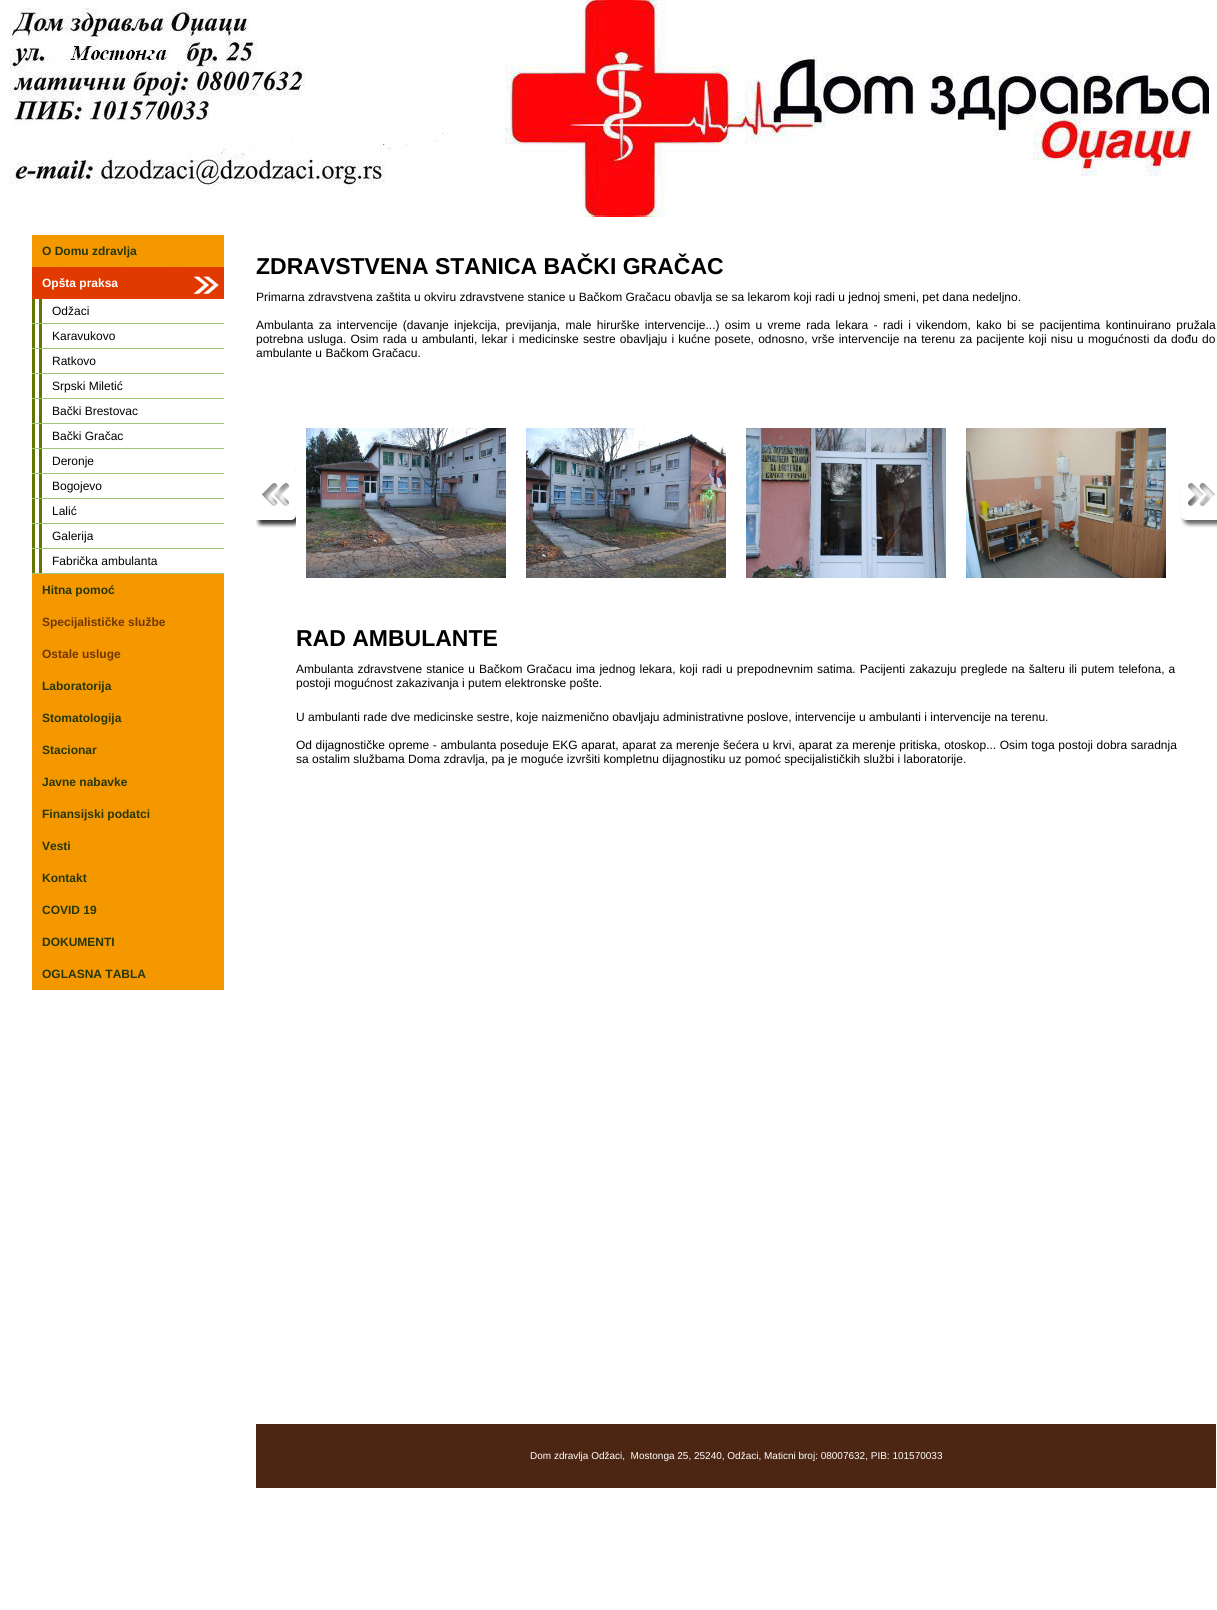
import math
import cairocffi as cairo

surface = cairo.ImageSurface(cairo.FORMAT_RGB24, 1217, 1610)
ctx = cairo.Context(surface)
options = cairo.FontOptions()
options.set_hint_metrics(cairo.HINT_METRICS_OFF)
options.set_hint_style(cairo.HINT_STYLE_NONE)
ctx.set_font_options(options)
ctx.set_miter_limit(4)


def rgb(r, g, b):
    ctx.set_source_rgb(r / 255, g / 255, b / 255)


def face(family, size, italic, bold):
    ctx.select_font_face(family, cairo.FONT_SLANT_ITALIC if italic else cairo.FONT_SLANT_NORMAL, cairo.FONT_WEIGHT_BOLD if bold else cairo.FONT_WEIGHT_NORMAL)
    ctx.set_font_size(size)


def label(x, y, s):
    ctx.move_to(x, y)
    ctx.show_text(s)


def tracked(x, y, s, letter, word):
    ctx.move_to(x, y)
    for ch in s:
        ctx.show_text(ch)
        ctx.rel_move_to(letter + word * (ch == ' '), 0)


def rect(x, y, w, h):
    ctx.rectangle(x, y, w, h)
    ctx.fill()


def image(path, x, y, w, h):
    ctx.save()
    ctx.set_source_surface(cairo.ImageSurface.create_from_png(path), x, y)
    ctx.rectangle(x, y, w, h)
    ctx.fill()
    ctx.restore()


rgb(255, 255, 255)
ctx.paint()
image('image0.png', 9, 0, 1200, 217)
rgb(245, 152, 0)
rect(32, 235, 192, 32)
face('Liberation Sans', 12, 0, 1)
rgb(38, 55, 10)
label(42, 255, 'O Domu zdravlja')
image('image1.png', 32, 267, 192, 32)
rgb(255, 255, 255)
label(42, 287, 'Opšta praksa')
rgb(161, 198, 123)
rect(32, 323, 192, 1)
rgb(100, 118, 0)
rect(32, 299, 3, 24)
rect(39, 299, 3, 24)
face('Liberation Sans', 12, 0, 0)
rgb(0, 0, 0)
label(52, 315, 'Odžaci')
rgb(161, 198, 123)
rect(32, 348, 192, 1)
rgb(100, 118, 0)
rect(32, 324, 3, 24)
rect(39, 324, 3, 24)
rgb(0, 0, 0)
label(52, 340, 'Karavukovo')
rgb(161, 198, 123)
rect(32, 373, 192, 1)
rgb(100, 118, 0)
rect(32, 349, 3, 24)
rect(39, 349, 3, 24)
rgb(0, 0, 0)
label(52, 365, 'Ratkovo')
rgb(161, 198, 123)
rect(32, 398, 192, 1)
rgb(100, 118, 0)
rect(32, 374, 3, 24)
rect(39, 374, 3, 24)
rgb(0, 0, 0)
label(52, 390, 'Srpski Miletić')
rgb(161, 198, 123)
rect(32, 423, 192, 1)
rgb(100, 118, 0)
rect(32, 399, 3, 24)
rect(39, 399, 3, 24)
rgb(0, 0, 0)
label(52, 415, 'Bački Brestovac')
rgb(161, 198, 123)
rect(32, 448, 192, 1)
rgb(100, 118, 0)
rect(32, 424, 3, 24)
rect(39, 424, 3, 24)
rgb(0, 0, 0)
label(52, 440, 'Bački Gračac')
rgb(161, 198, 123)
rect(32, 473, 192, 1)
rgb(100, 118, 0)
rect(32, 449, 3, 24)
rect(39, 449, 3, 24)
rgb(0, 0, 0)
label(52, 465, 'Deronje')
rgb(161, 198, 123)
rect(32, 498, 192, 1)
rgb(100, 118, 0)
rect(32, 474, 3, 24)
rect(39, 474, 3, 24)
rgb(0, 0, 0)
label(52, 490, 'Bogojevo')
rgb(161, 198, 123)
rect(32, 523, 192, 1)
rgb(100, 118, 0)
rect(32, 499, 3, 24)
rect(39, 499, 3, 24)
rgb(0, 0, 0)
label(52, 515, 'Lalić')
rgb(161, 198, 123)
rect(32, 548, 192, 1)
rgb(100, 118, 0)
rect(32, 524, 3, 24)
rect(39, 524, 3, 24)
rgb(0, 0, 0)
label(52, 540, 'Galerija')
rgb(161, 198, 123)
rect(32, 573, 192, 1)
rgb(100, 118, 0)
rect(32, 549, 3, 24)
rect(39, 549, 3, 24)
rgb(0, 0, 0)
label(52, 565, 'Fabrička ambulanta')
rgb(245, 152, 0)
rect(32, 574, 192, 416)
face('Liberation Sans', 12, 0, 1)
rgb(38, 55, 10)
label(42, 594, 'Hitna pomoć')
rgb(111, 55, 0)
label(42, 626, 'Specijalističke službe')
label(42, 658, 'Ostale usluge')
rgb(38, 55, 10)
label(42, 690, 'Laboratorija')
label(42, 722, 'Stomatologija')
label(42, 754, 'Stacionar')
label(42, 786, 'Javne nabavke')
label(42, 818, 'Finansijski podatci')
label(42, 850, 'Vesti')
label(42, 882, 'Kontakt')
label(42, 914, 'COVID 19')
label(42, 946, 'DOKUMENTI')
label(42, 978, 'OGLASNA TABLA')
face('Liberation Sans', 23, 0, 1)
rgb(0, 0, 0)
label(256, 274, 'ZDRAVSTVENA STANICA BAČKI GRAČAC')
face('Liberation Sans', 12, 0, 0)
label(256, 301, 'Primarna zdravstvena zaštita u okviru zdravstvene stanice u Bačkom Gračacu obavlja se sa lekarom koji radi u jednoj smeni, pet dana nedeljno.')
tracked(256, 329, 'Ambulanta za intervencije (davanje injekcija, previjanja, male hirurške intervencije...) osim u vreme rada lekara - radi i vikendom, kako bi se pacijentima kontinuirano pružala', 0, 2)
tracked(256, 343, 'potrebna usluga. Osim rada u ambulanti, lekar i medicinske sestre obavljaju i kućne posete, odnosno, vrše intervencije na terenu za pacijente koji nisu u mogućnosti da dođu do', 0, 0.9)
label(256, 357, 'ambulante u Bačkom Gračacu.')
image('image2.png', 306, 428, 200, 150)
image('image3.png', 526, 428, 200, 150)
image('image4.png', 746, 428, 200, 150)
image('image5.png', 966, 428, 200, 150)
image('image6.png', 256, 468, 40, 60)
image('image7.png', 1180, 483, 37, 45)
face('Liberation Sans', 23, 0, 1)
label(296, 646, 'RAD AMBULANTE')
face('Liberation Sans', 12, 0, 0)
tracked(296, 673, 'Ambulanta zdravstvene stanice u Bačkom Gračacu ima jednog lekara, koji', 0, 0.75)
tracked(702, 673, 'radi u prepodnevnim satima. Pacijenti zakazuju preglede na šalteru ili putem telefona, a', 0, 0.75)
label(296, 687, 'postoji mogućnost zakazivanja i putem elektronske pošte.')
label(296, 721, 'U ambulanti rade dve medicinske sestre, koje naizmenično obavljaju administrativne poslove, intervencije u ambulanti i intervencije na terenu.')
tracked(296, 749, 'Od dijagnostičke opreme - ambulanta poseduje EKG aparat, aparat za merenje šećera u krvi, aparat za merenje pritiska, otoskop... Osim toga postoji dobra saradnja', 0, 0.25)
label(296, 763, 'sa ostalim službama Doma zdravlja, pa je moguće izvršiti kompletnu dijagnostiku uz pomoć specijalističkih službi i laboratorije.')
rgb(76, 38, 19)
rect(256, 1424, 960, 64)
face('Liberation Sans', 10, 0, 0)
rgb(255, 255, 255)
label(530, 1459, 'Dom zdravlja Odžaci,  Mostonga 25, 25240, Odžaci, Maticni broj: 08007632, PIB: 101570033')
surface.write_to_png('render.png')
